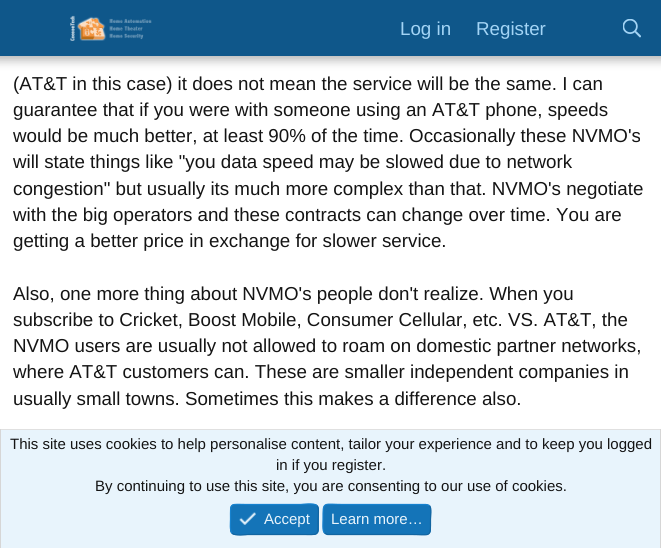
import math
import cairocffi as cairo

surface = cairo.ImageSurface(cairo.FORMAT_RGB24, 661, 548)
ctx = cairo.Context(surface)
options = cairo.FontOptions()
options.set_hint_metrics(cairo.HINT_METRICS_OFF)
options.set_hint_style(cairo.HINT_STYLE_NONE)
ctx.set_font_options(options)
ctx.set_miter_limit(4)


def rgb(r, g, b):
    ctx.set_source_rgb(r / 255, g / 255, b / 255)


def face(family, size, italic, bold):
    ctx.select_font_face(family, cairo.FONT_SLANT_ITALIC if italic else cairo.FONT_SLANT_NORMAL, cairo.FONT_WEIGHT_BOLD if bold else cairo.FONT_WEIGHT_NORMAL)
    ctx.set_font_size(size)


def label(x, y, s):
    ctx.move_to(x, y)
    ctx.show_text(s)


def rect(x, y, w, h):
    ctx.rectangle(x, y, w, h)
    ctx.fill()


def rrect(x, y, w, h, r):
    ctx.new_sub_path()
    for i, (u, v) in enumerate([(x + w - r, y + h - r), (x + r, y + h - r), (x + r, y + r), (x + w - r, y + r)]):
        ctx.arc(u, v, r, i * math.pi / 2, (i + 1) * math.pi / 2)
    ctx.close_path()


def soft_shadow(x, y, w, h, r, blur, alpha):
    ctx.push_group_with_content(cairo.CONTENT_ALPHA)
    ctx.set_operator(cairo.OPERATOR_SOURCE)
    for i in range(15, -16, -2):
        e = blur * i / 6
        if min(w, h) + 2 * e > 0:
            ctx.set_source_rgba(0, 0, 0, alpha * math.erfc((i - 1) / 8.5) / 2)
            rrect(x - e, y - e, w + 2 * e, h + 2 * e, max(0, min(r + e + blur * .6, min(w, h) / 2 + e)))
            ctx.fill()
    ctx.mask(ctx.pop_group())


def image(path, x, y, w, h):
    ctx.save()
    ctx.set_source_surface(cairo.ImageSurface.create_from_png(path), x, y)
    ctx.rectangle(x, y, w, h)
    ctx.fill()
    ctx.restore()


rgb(255, 255, 255)
ctx.paint()
rgb(0, 0, 0)
soft_shadow(-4, -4, 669, 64, 0, 5, 0.3)
rgb(15, 87, 138)
rect(0, 0, 661, 56)
image('image0.png', 70, 15, 82, 26)
face('Liberation Sans', 18.75, 0, 0)
rgb(163, 212, 245)
label(400, 35, 'Log in')
label(476, 35, 'Register')
image('image1.png', 623, 19, 18, 19)
rgb(20, 20, 20)
label(13, 90, '(AT&T in this case) it does not mean the service will be the same. I can')
label(13, 116, 'guarantee that if you were with someone using an AT&T phone, speeds')
label(13, 142, 'would be much better, at least 90% of the time. Occasionally these NVMO\'s')
label(13, 168, 'will state things like "you data speed may be slowed due to network')
label(13, 195, 'congestion" but usually its much more complex than that. NVMO\'s negotiate')
label(13, 221, 'with the big operators and these contracts can change over time. You are')
label(13, 247, 'getting a better price in exchange for slower service.')
label(13, 300, 'Also, one more thing about NVMO\'s people don\'t realize. When you')
label(13, 326, 'subscribe to Cricket, Boost Mobile, Consumer Cellular, etc. VS. AT&T, the')
label(13, 352, 'NVMO users are usually not allowed to roam on domestic partner networks,')
label(13, 378, 'where AT&T customers can. These are smaller independent companies in')
label(13, 405, 'usually small towns. Sometimes this makes a difference also.')
rgb(232, 244, 252)
rect(1, 430, 659, 118)
rgb(224, 224, 224)
rect(0, 429, 661, 1)
rgb(214, 214, 214)
rect(660, 429, 1, 119)
rect(0, 429, 1, 119)
face('Liberation Sans', 15, 0, 0)
rgb(20, 20, 20)
label(10, 449, 'This site uses cookies to help personalise content, tailor your experience and to keep you logged')
label(276, 470, 'in if you register.')
label(95, 491, 'By continuing to use this site, you are consenting to our use of cookies.')
rgb(20, 116, 184)
rrect(230, 504, 89, 31, 5)
ctx.fill()
ctx.new_path()
ctx.move_to(317, 505.5)
ctx.curve_to(319.5, 508.5, 318, 516, 318, 519.5)
ctx.curve_to(318, 537, 319.5, 534.5, 300.5, 534.5)
ctx.line_to(248, 534.5)
ctx.curve_to(247, 534.5, 235, 536.5, 232, 533)
rgb(18, 101, 161)
ctx.set_line_width(1.2)
ctx.stroke()
ctx.new_path()
ctx.move_to(232, 533)
ctx.curve_to(229.5, 530.5, 230.5, 522.5, 230.5, 519.5)
ctx.curve_to(230.5, 501.5, 229, 504.5, 248, 504.5)
ctx.line_to(300.5, 504.5)
ctx.curve_to(302, 504.5, 313.5, 502.5, 317, 505.5)
rgb(23, 130, 207)
ctx.stroke()
image('image2.png', 239, 512, 17, 13)
rgb(232, 244, 252)
label(264, 524, 'Accept')
rgb(20, 116, 184)
rrect(323, 504, 108, 31, 5)
ctx.fill()
ctx.new_path()
ctx.move_to(429.5, 505.5)
ctx.curve_to(432, 508.5, 430.5, 516, 430.5, 519.5)
ctx.curve_to(430.5, 538.5, 431.5, 534.5, 410, 534.5)
ctx.line_to(327.5, 534.5)
ctx.line_to(324.5, 533)
rgb(18, 101, 161)
ctx.stroke()
ctx.new_path()
ctx.move_to(324.5, 533)
ctx.curve_to(322, 530.5, 323, 522.5, 323, 519.5)
ctx.curve_to(323, 500.5, 322.5, 504.5, 344, 504.5)
ctx.line_to(426, 504.5)
ctx.line_to(429.5, 505.5)
rgb(23, 130, 207)
ctx.stroke()
rgb(232, 244, 252)
label(331, 524, 'Learn more…')
surface.write_to_png('render.png')
